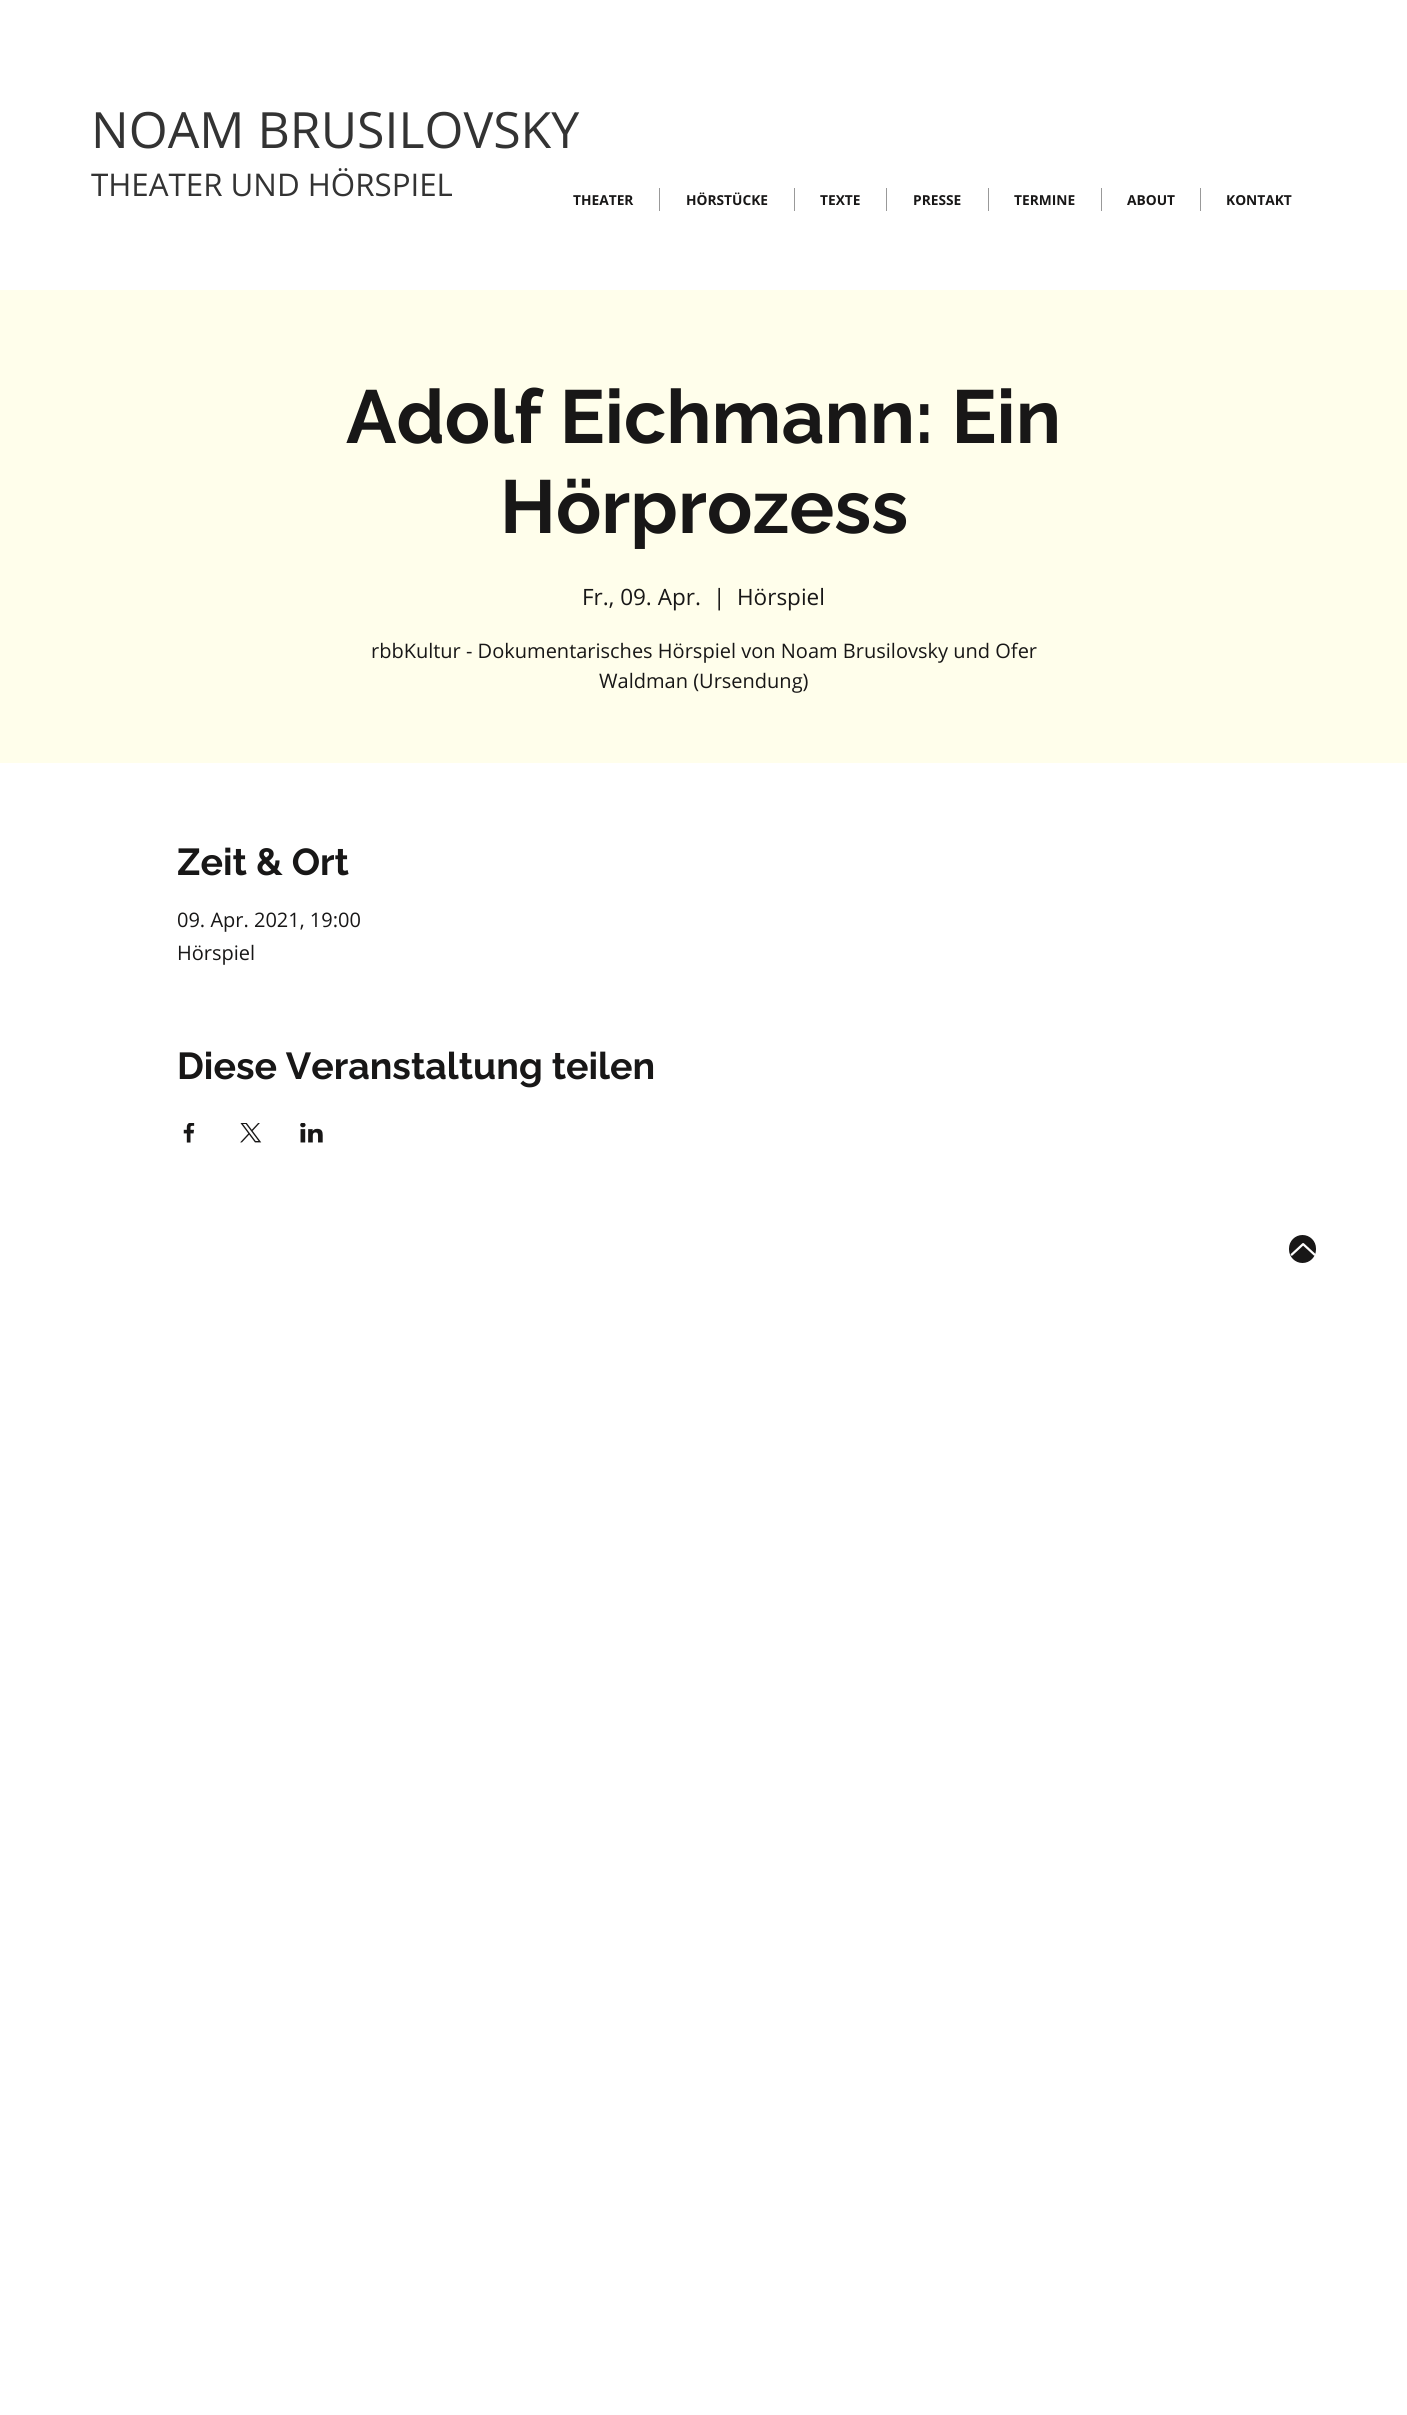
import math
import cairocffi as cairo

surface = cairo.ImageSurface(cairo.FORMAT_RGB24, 1407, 2415)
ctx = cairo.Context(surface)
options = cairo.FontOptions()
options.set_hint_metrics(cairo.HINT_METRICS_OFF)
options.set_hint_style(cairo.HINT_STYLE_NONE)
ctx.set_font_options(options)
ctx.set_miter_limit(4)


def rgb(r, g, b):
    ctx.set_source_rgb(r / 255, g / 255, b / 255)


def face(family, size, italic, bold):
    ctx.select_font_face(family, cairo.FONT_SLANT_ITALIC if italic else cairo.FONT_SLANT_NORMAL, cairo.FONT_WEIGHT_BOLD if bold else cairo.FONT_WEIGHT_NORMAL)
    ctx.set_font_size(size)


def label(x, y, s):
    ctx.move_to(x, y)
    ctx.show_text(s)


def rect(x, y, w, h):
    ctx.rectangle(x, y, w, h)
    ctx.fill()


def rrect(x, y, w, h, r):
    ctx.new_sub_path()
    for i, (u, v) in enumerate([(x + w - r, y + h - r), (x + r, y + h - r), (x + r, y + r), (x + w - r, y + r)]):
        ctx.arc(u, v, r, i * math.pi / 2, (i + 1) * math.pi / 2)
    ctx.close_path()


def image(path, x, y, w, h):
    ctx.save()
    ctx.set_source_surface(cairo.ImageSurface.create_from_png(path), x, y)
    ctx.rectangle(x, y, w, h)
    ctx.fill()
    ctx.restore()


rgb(255, 255, 255)
ctx.paint()
face('Open Sans', 50, 0, 0)
rgb(51, 51, 51)
label(91, 148, 'NOAM BRUSILOVSKY')
face('Open Sans', 31.25, 0, 0)
label(91, 196, 'THEATER UND HÖRSPIEL')
face('Open Sans', 13.75, 0, 1)
rgb(24, 23, 23)
label(573, 205, 'THEATER')
rgb(153, 153, 153)
rect(659, 188, 1, 23)
rgb(24, 23, 23)
label(686, 205, 'HÖRSTÜCKE')
rgb(153, 153, 153)
rect(794, 188, 1, 23)
rgb(24, 23, 23)
label(820, 205, 'TEXTE')
rgb(153, 153, 153)
rect(886, 188, 1, 23)
rgb(24, 23, 23)
label(913, 205, 'PRESSE')
rgb(153, 153, 153)
rect(988, 188, 1, 23)
rgb(24, 23, 23)
label(1014, 205, 'TERMINE')
rgb(153, 153, 153)
rect(1101, 188, 1, 23)
rgb(24, 23, 23)
label(1127, 205, 'ABOUT')
rgb(153, 153, 153)
rect(1200, 188, 1, 23)
rgb(24, 23, 23)
label(1226, 205, 'KONTAKT')
rgb(255, 254, 235)
rect(0, 290, 1407, 473)
face('Raleway', 75, 0, 1)
rgb(24, 23, 23)
label(346, 443, 'Adolf Eichmann: Ein')
label(500, 533, 'Hörprozess')
face('Open Sans', 22.5, 0, 0)
label(582, 605, 'Fr., 09. Apr.')
label(713, 605, '|')
label(737, 605, 'Hörspiel')
face('Open Sans', 20, 0, 0)
label(371, 658, 'rbbKultur - Dokumentarisches Hörspiel von Noam Brusilovsky und Ofer')
label(599, 688, 'Waldman (Ursendung)')
face('Raleway', 37.5, 0, 1)
label(177, 875, 'Zeit & Ort')
face('Open Sans', 20, 0, 0)
label(177, 927, '09. Apr. 2021, 19:00')
label(177, 960, 'Hörspiel')
face('Raleway', 37.5, 0, 1)
label(177, 1079, 'Diese Veranstaltung teilen')
image('image0.png', 183, 1123, 12, 20)
image('image1.png', 240, 1123, 22, 20)
image('image2.png', 300, 1123, 23, 20)
rrect(1289, 1235, 27, 28, 13.5)
ctx.fill()
image('image3.png', 1290, 1243, 26, 13)
surface.write_to_png('render.png')
